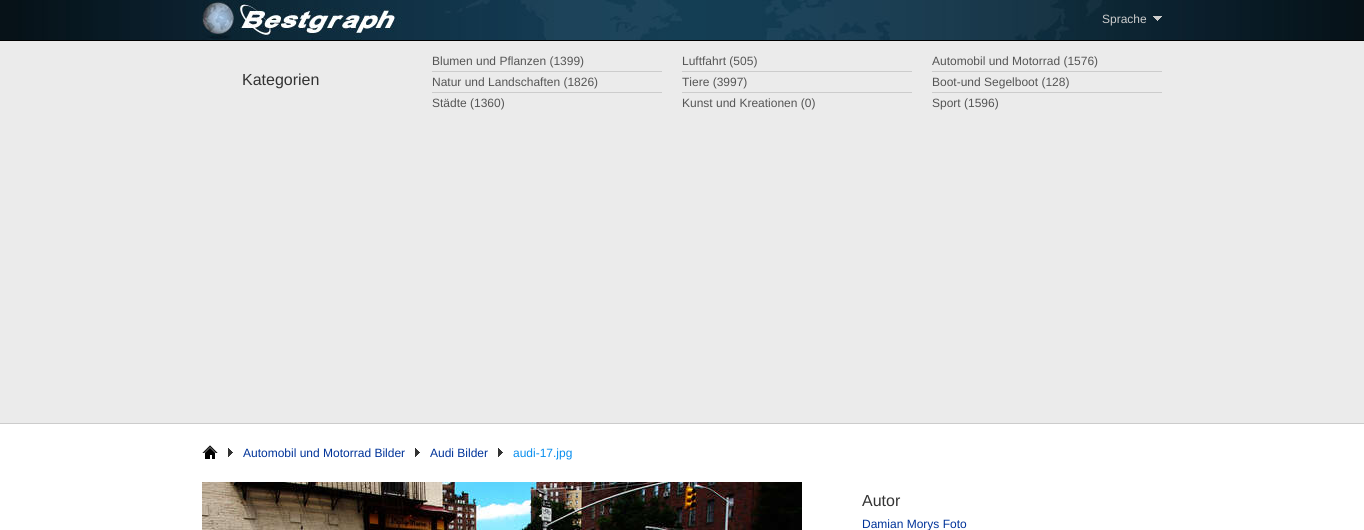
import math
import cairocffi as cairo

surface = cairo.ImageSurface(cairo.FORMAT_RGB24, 1364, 530)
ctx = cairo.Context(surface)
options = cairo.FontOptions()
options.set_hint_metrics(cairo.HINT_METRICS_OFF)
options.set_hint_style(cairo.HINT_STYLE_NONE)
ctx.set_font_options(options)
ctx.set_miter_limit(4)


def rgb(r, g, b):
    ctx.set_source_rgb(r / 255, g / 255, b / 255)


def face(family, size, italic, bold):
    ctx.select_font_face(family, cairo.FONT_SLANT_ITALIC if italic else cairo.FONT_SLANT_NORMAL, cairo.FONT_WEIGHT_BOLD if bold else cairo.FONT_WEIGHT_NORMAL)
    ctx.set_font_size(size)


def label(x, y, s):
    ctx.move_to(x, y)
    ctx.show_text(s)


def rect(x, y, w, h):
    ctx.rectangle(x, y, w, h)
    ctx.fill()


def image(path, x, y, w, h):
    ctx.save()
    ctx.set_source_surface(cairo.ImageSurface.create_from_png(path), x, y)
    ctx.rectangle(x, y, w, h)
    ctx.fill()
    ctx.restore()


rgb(0, 0, 0)
ctx.paint()
image('image0.png', 0, 0, 1364, 40)
face('Liberation Sans', 12, 0, 0)
rgb(204, 204, 204)
label(1102, 23, 'Sprache')
image('image1.png', 1153, 16, 9, 5)
rgb(235, 235, 235)
rect(0, 41, 1364, 382)
rgb(204, 204, 204)
rect(0, 423, 1364, 1)
face('Liberation Sans', 16, 0, 0)
rgb(51, 51, 51)
label(242, 85, 'Kategorien')
rgb(204, 204, 204)
rect(432, 71, 230, 1)
face('Liberation Sans', 12, 0, 0)
rgb(85, 85, 85)
label(432, 65, 'Blumen und Pflanzen (1399)')
rgb(204, 204, 204)
rect(682, 71, 230, 1)
rgb(85, 85, 85)
label(682, 65, 'Luftfahrt (505)')
rgb(204, 204, 204)
rect(932, 71, 230, 1)
rgb(85, 85, 85)
label(932, 65, 'Automobil und Motorrad (1576)')
rgb(204, 204, 204)
rect(432, 92, 230, 1)
rgb(85, 85, 85)
label(432, 86, 'Natur und Landschaften (1826)')
rgb(204, 204, 204)
rect(682, 92, 230, 1)
rgb(85, 85, 85)
label(682, 86, 'Tiere (3997)')
rgb(204, 204, 204)
rect(932, 92, 230, 1)
rgb(85, 85, 85)
label(932, 86, 'Boot-und Segelboot (128)')
label(432, 107, 'Städte (1360)')
label(682, 107, 'Kunst und Kreationen (0)')
label(932, 107, 'Sport (1596)')
rgb(255, 255, 255)
rect(0, 424, 1364, 106)
image('image2.png', 202, 445, 16, 14)
image('image3.png', 228, 448, 5, 9)
rgb(0, 51, 153)
label(243, 457, 'Automobil und Motorrad Bilder')
image('image3.png', 415, 448, 5, 9)
label(430, 457, 'Audi Bilder')
image('image3.png', 498, 448, 5, 9)
rgb(8, 142, 238)
label(513, 457, 'audi-17.jpg')
image('image4.png', 202, 482, 600, 48)
face('Liberation Sans', 16, 0, 0)
rgb(51, 51, 51)
label(862, 506, 'Autor')
face('Liberation Sans', 12, 0, 0)
rgb(0, 51, 153)
label(862, 528, 'Damian Morys Foto')
surface.write_to_png('render.png')
